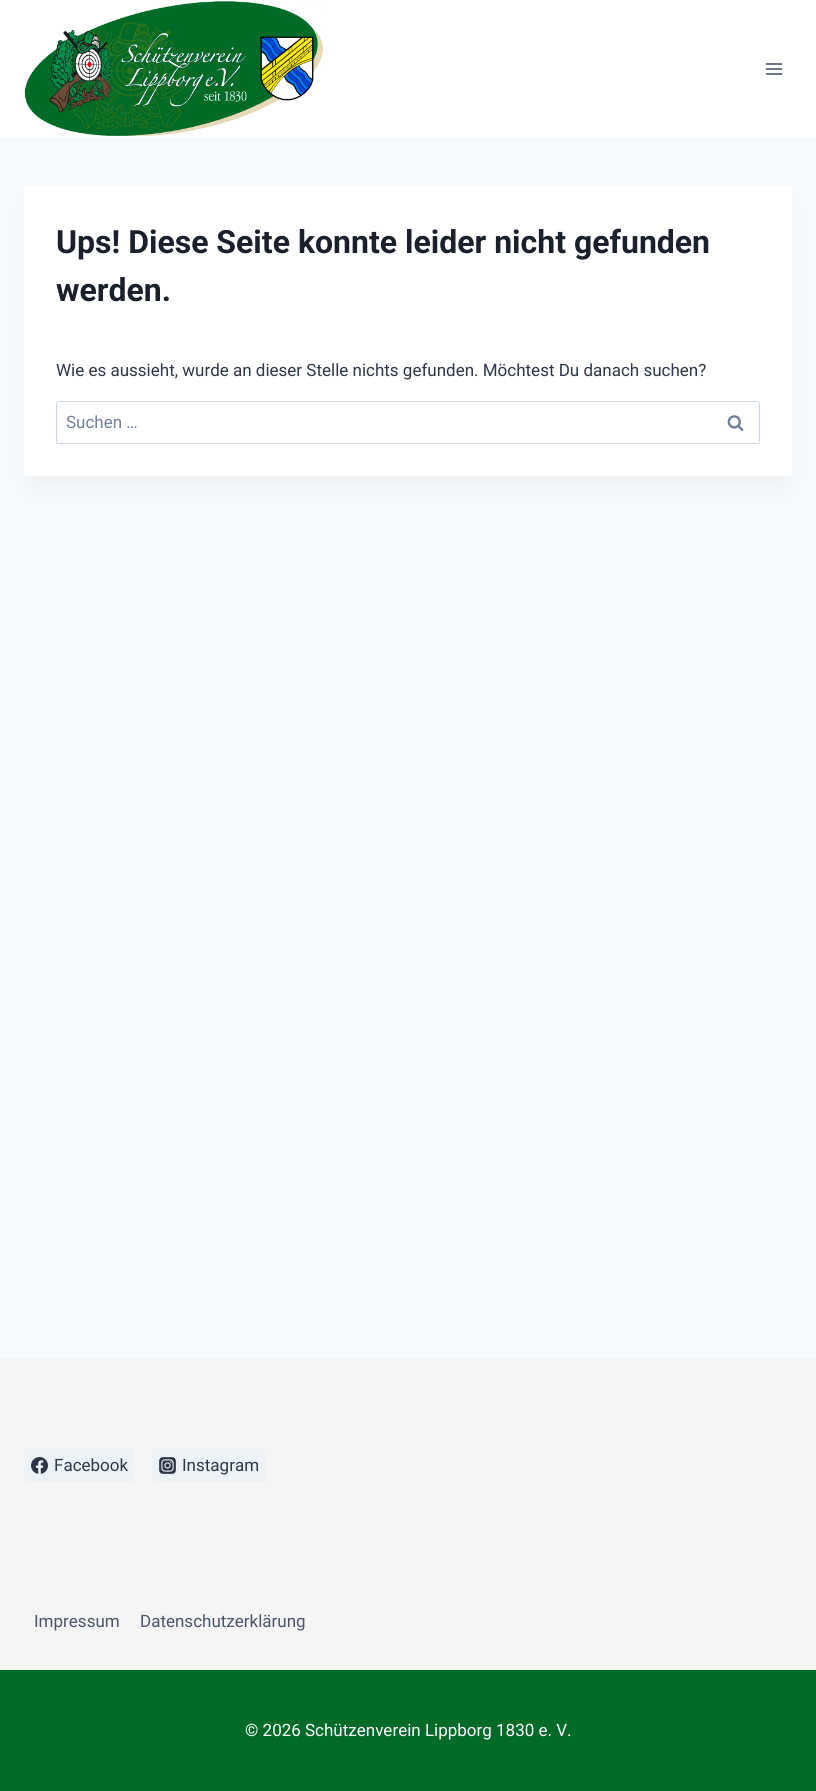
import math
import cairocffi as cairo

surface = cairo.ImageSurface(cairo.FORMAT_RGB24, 816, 1791)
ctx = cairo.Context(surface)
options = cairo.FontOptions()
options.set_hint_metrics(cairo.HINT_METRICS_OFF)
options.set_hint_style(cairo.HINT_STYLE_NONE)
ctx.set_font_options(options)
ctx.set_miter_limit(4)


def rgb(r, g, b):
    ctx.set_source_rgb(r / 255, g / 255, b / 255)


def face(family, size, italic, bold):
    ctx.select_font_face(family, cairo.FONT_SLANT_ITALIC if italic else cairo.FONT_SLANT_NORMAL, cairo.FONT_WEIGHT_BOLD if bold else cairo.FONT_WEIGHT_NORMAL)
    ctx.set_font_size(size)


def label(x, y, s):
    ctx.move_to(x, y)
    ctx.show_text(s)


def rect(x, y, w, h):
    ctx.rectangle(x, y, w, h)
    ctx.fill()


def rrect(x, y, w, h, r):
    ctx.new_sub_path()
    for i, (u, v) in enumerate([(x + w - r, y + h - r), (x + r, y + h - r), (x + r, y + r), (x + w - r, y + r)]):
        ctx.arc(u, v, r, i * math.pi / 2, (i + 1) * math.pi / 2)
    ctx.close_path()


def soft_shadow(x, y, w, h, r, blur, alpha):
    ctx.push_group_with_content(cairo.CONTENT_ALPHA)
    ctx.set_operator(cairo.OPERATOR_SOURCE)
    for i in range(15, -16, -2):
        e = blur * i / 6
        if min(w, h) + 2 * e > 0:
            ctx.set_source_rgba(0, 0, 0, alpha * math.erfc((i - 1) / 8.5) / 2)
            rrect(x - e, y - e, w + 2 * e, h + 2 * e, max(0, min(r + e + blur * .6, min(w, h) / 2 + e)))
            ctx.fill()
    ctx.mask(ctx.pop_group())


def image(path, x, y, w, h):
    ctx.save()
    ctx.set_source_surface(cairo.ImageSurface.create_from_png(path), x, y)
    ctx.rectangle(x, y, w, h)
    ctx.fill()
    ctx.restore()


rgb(247, 250, 252)
ctx.paint()
rgb(255, 255, 255)
rect(0, 0, 816, 138)
image('image0.png', 24, 0, 300, 138)
image('image1.png', 765, 63, 18, 12)
rgb(0, 0, 0)
soft_shadow(34, 211, 748, 270, 0, 12.5, 0.05)
rgb(255, 255, 255)
rrect(24, 186, 768, 290, 4)
ctx.fill()
face('Roboto', 32, 0, 1)
rgb(26, 32, 44)
label(56, 253, 'Ups! Diese Seite konnte leider nicht gefunden')
label(56, 301, 'werden.')
face('Roboto', 17, 0, 0)
rgb(45, 55, 72)
label(56, 376, 'Wie es aussieht, wurde an dieser Stelle nichts gefunden. Möchtest Du danach suchen?')
rrect(56.5, 401.5, 703, 42, 2.5)
rgb(203, 213, 224)
ctx.set_line_width(1)
ctx.stroke()
rgb(113, 128, 150)
label(66, 428, 'Suchen …')
image('image2.png', 727, 415, 17, 16)
rgb(245, 245, 245)
rect(0, 1358, 816, 312)
rgb(237, 242, 247)
rrect(24, 1448, 111, 34, 3)
ctx.fill()
image('image3.png', 31, 1457, 17, 17)
rgb(45, 55, 72)
label(54, 1471, 'Facebook')
rgb(237, 242, 247)
rrect(152, 1448, 113, 34, 3)
ctx.fill()
image('image4.png', 159, 1457, 17, 17)
rgb(45, 55, 72)
label(182, 1471, 'Instagram')
rgb(74, 85, 104)
label(34, 1627, 'Impressum')
label(140, 1627, 'Datenschutzerklärung')
rgb(0, 106, 40)
rect(0, 1670, 816, 121)
rgb(255, 255, 255)
label(245, 1736, '© 2026 Schützenverein Lippborg 1830 e. V.')
surface.write_to_png('render.png')
